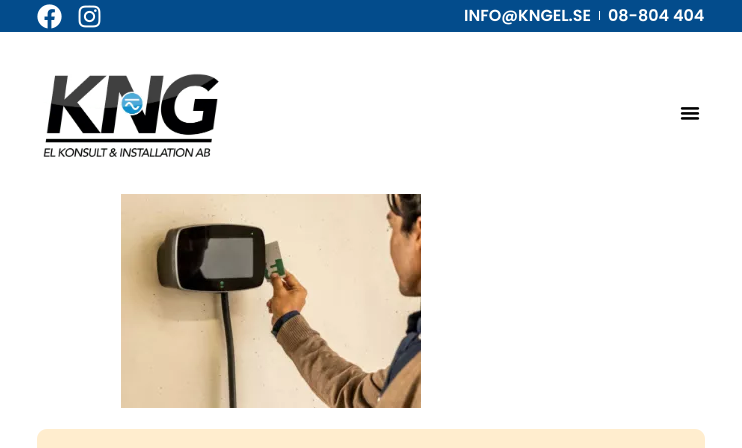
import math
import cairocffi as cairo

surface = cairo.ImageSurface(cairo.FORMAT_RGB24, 742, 448)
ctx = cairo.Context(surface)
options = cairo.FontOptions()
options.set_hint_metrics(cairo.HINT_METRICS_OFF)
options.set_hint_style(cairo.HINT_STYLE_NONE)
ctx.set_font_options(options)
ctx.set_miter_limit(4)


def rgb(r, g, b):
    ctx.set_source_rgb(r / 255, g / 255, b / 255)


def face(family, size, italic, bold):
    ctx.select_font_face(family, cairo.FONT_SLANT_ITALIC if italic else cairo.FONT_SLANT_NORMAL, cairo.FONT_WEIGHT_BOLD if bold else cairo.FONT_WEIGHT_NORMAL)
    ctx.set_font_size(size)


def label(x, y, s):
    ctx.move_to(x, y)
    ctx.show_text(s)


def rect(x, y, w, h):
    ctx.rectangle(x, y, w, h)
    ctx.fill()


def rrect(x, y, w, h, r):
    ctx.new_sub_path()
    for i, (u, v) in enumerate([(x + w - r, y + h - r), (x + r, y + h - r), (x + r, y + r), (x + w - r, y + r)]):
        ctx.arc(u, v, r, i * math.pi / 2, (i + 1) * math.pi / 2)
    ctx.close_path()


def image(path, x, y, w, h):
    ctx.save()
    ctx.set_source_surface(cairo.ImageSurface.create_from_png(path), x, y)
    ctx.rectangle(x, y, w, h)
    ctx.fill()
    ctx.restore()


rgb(255, 255, 255)
ctx.paint()
rgb(3, 76, 140)
rect(0, 0, 742, 32)
image('image0.png', 37, 4, 25, 25)
image('image1.png', 78, 5, 23, 23)
face('Poppins SemiBold', 16, 0, 0)
rgb(255, 255, 255)
label(464, 21, 'INFO@KNGEL.SE')
rect(599, 11, 1, 9)
label(608, 21, '08-804 404')
image('image2.png', 43, 73, 176, 84)
image('image3.png', 680, 107, 20, 13)
image('image4.png', 121, 194, 300, 214)
rgb(255, 237, 206)
rrect(37, 429, 668, 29, 10)
ctx.fill()
surface.write_to_png('render.png')
